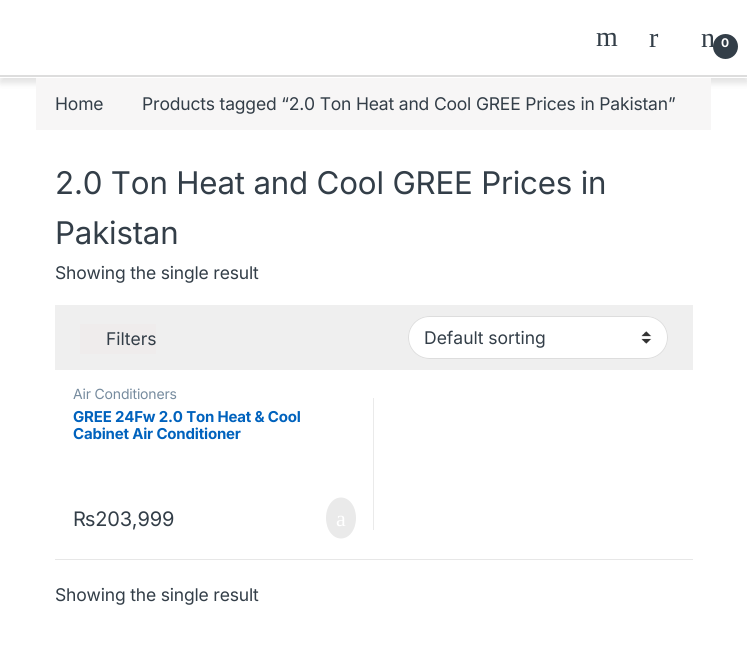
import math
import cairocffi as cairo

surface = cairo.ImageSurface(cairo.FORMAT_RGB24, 747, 666)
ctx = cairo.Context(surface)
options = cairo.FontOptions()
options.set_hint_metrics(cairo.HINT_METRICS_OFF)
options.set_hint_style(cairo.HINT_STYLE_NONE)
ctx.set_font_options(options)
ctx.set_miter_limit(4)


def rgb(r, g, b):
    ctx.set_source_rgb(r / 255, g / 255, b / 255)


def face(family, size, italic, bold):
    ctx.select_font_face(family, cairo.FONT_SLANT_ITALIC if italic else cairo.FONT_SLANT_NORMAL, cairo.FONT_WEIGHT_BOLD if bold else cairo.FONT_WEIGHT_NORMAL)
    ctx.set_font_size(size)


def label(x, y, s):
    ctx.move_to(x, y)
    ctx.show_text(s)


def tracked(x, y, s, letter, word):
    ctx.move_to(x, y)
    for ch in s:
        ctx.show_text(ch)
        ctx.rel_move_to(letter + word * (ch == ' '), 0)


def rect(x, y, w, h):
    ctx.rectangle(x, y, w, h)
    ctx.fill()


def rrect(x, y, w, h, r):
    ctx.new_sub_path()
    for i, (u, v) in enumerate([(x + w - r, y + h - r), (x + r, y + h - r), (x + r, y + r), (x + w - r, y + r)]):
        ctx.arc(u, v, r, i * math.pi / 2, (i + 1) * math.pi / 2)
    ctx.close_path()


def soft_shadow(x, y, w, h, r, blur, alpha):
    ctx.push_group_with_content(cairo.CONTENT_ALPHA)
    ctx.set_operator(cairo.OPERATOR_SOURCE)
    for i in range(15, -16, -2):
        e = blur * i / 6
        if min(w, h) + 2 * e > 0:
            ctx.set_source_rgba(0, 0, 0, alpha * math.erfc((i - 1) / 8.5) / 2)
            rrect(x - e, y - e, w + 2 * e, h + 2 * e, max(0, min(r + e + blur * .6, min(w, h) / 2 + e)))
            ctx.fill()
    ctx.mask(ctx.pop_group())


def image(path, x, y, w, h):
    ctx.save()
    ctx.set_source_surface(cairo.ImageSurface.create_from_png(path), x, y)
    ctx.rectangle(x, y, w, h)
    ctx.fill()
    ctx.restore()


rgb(255, 255, 255)
ctx.paint()
ctx.save()
ctx.set_fill_rule(cairo.FILL_RULE_EVEN_ODD)
ctx.new_path()
ctx.move_to(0, 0)
ctx.line_to(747, 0)
ctx.line_to(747, 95)
ctx.line_to(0, 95)
ctx.close_path()
ctx.move_to(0, 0)
ctx.line_to(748, 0)
ctx.line_to(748, 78)
ctx.line_to(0, 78)
ctx.close_path()
ctx.clip()
rgb(0, 0, 0)
soft_shadow(0, 5, 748, 78, 0, 3.5, 0.12)
ctx.restore()
rgb(221, 221, 221)
rect(0, 75, 747, 2)
face('Liberation Serif', 28, 0, 0)
rgb(51, 62, 72)
tracked(596, 46, 'm', -0.18, 0)
tracked(649, 47, 'r', -0.18, 0)
tracked(701, 47, 'n', -0.18, 0)
ctx.new_path()
ctx.arc(725.5, 46.5, 12.5, 0, 2 * math.pi)
ctx.fill()
face('Inter', 12, 0, 1)
rgb(255, 255, 255)
tracked(721, 47, '0', -0.18, 0)
rgb(247, 246, 246)
rect(36, 78, 675, 52)
face('Inter', 17.5, 0, 0)
rgb(51, 62, 72)
tracked(55, 110, 'Home', -0.18, 0)
tracked(142, 110, 'Products tagged “2.0 Ton Heat and Cool GREE Prices in Pakistan”', -0.18, 0)
face('Inter', 31.25, 0, 0)
tracked(55, 194, '2.0 Ton Heat and Cool GREE Prices in', -0.18, 0)
tracked(55, 244, 'Pakistan', -0.18, 0)
face('Inter', 17.5, 0, 0)
tracked(55, 279, 'Showing the single result', -0.18, 0)
rgb(239, 239, 239)
rect(55, 305, 638, 65)
rgb(239, 236, 236)
rect(80, 324, 76, 30)
rgb(51, 62, 72)
label(106, 345, 'Filters')
rgb(255, 255, 255)
rrect(408, 316, 260, 43, 21.5)
ctx.fill()
image('image0.png', 641, 331, 11, 13)
rrect(408.5, 316.5, 259, 42, 21)
rgb(221, 221, 221)
ctx.set_line_width(1)
ctx.stroke()
rgb(51, 62, 72)
label(424, 344, 'Default sorting')
face('Inter', 14, 0, 0)
rgb(118, 139, 158)
tracked(73, 399, 'Air Conditioners', -0.18, 0)
face('Inter', 15, 0, 1)
rgb(0, 98, 189)
tracked(73, 422, 'GREE 24Fw 2.0 Ton Heat & Cool', -0.18, 0)
tracked(73, 439, 'Cabinet Air Conditioner', -0.18, 0)
face('Inter', 20, 0, 0)
rgb(51, 62, 72)
tracked(73, 526, '₨203,999', -0.18, 0)
rgb(234, 234, 234)
ctx.new_path()
ctx.move_to(341, 497.5)
ctx.curve_to(349.5, 497.5, 356, 506.5, 356, 518)
ctx.curve_to(356, 529.5, 349.5, 538.5, 341, 538.5)
ctx.curve_to(332.5, 538.5, 326, 529.5, 326, 518)
ctx.curve_to(326, 506.5, 332.5, 497.5, 341, 497.5)
ctx.close_path()
ctx.fill()
face('Liberation Serif', 22, 0, 0)
rgb(255, 255, 255)
tracked(336, 526, 'a', -0.18, 0)
rgb(234, 234, 234)
rect(373, 398, 1, 132)
rgb(231, 231, 231)
rect(55, 559, 638, 1)
face('Inter', 17.5, 0, 0)
rgb(51, 62, 72)
tracked(55, 601, 'Showing the single result', -0.18, 0)
surface.write_to_png('render.png')
